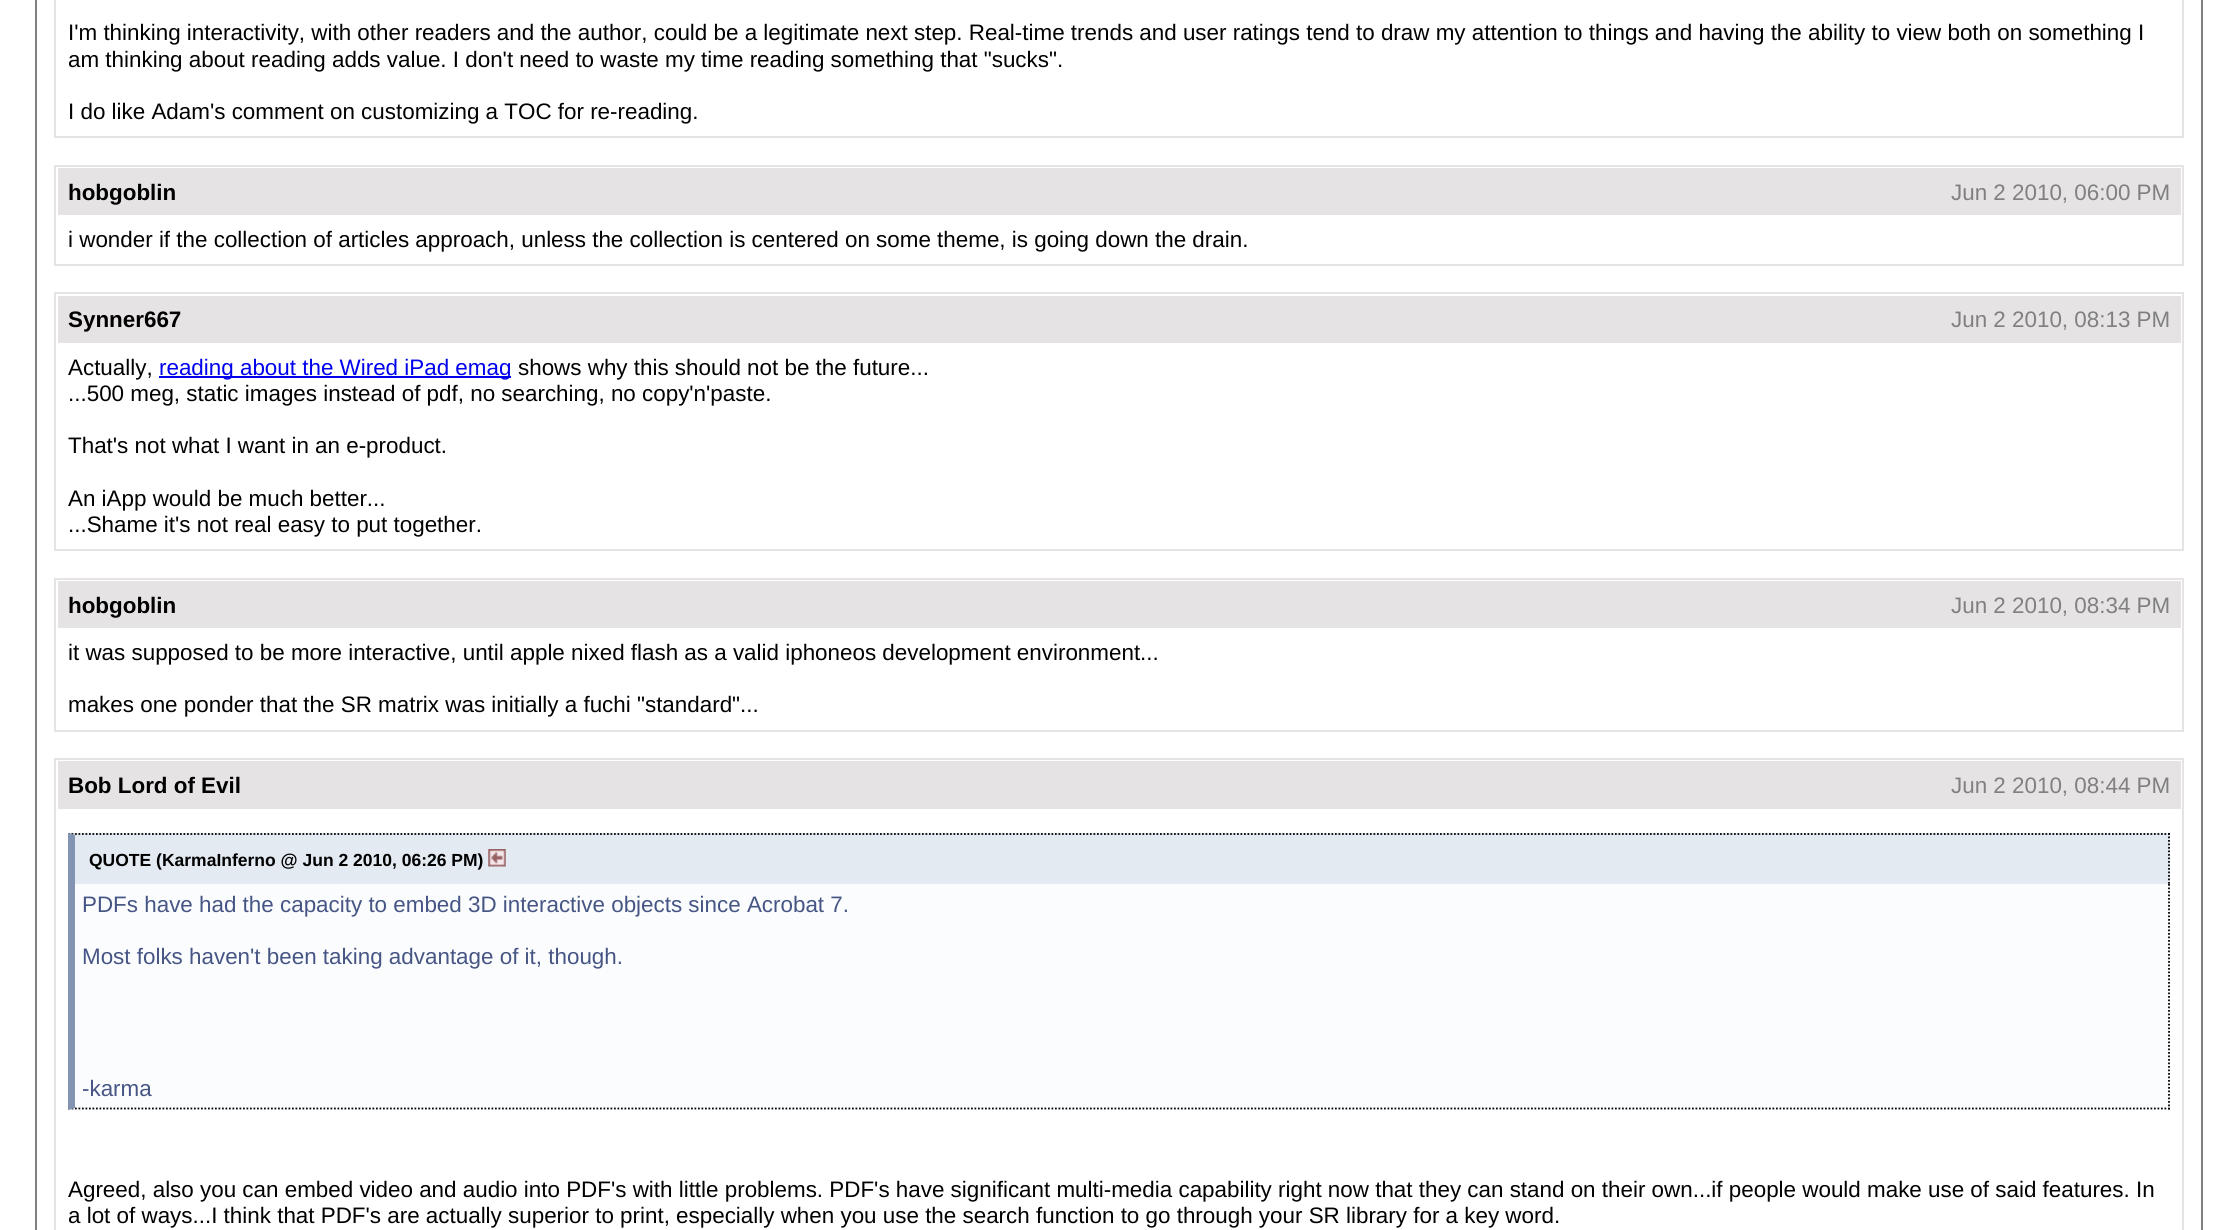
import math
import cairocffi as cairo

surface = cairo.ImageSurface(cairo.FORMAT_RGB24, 2237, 1230)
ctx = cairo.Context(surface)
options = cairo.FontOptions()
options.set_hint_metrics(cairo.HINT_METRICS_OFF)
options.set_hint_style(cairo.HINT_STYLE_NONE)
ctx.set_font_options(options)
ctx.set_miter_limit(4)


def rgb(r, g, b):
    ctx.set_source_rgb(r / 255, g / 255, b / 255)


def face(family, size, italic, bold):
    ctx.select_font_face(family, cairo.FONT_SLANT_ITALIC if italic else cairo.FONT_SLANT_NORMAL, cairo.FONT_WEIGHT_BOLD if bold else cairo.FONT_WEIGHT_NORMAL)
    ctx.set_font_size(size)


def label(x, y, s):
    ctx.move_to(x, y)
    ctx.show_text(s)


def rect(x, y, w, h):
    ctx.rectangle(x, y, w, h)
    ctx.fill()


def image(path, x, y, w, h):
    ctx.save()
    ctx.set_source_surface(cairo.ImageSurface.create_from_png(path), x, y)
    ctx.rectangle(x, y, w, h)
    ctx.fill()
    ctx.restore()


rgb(255, 255, 255)
ctx.paint()
ctx.rectangle(36, -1, 2166, 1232)
rgb(128, 128, 128)
ctx.stroke()
ctx.rectangle(55, -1, 2128, 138)
rgb(230, 227, 228)
ctx.stroke()
face('Liberation Sans', 22.4, 0, 0)
rgb(0, 0, 0)
label(68, 40, 'I\'m thinking interactivity, with other readers and the author, could be a legitimate next step. Real-time trends and user ratings tend to draw my attention to things and having the ability to view both on something I')
label(68, 67, 'am thinking about reading adds value. I don\'t need to waste my time reading something that "sucks".')
label(68, 119, 'I do like Adam\'s comment on customizing a TOC for re-reading.')
ctx.rectangle(55, 166, 2128, 99)
rgb(230, 227, 228)
ctx.stroke()
rect(58, 168, 2123, 47)
face('Liberation Sans', 22.4, 0, 1)
rgb(0, 0, 0)
label(68, 200, 'hobgoblin')
face('Liberation Sans', 22.4, 0, 0)
rgb(128, 128, 128)
label(1951, 200, 'Jun 2 2010, 06:00 PM')
rgb(0, 0, 0)
label(68, 247, 'i wonder if the collection of articles approach, unless the collection is centered on some theme, is going down the drain.')
ctx.rectangle(55, 293, 2128, 257)
rgb(230, 227, 228)
ctx.stroke()
rect(58, 296, 2123, 47)
face('Liberation Sans', 22.4, 0, 1)
rgb(0, 0, 0)
label(68, 327, 'Synner667')
face('Liberation Sans', 22.4, 0, 0)
rgb(128, 128, 128)
label(1951, 327, 'Jun 2 2010, 08:13 PM')
rgb(0, 0, 0)
label(68, 375, 'Actually,')
rgb(0, 0, 238)
rect(159, 376, 352, 2)
label(159, 375, 'reading about the Wired iPad emag')
rgb(0, 0, 0)
label(518, 375, 'shows why this should not be the future...')
label(68, 401, '...500 meg, static images instead of pdf, no searching, no copy\'n\'paste.')
label(68, 453, 'That\'s not what I want in an e-product.')
label(68, 506, 'An iApp would be much better...')
label(68, 532, '...Shame it\'s not real easy to put together.')
ctx.rectangle(55, 579, 2128, 152)
rgb(230, 227, 228)
ctx.stroke()
rect(58, 581, 2123, 47)
face('Liberation Sans', 22.4, 0, 1)
rgb(0, 0, 0)
label(68, 613, 'hobgoblin')
face('Liberation Sans', 22.4, 0, 0)
rgb(128, 128, 128)
label(1951, 613, 'Jun 2 2010, 08:34 PM')
rgb(0, 0, 0)
label(68, 660, 'it was supposed to be more interactive, until apple nixed flash as a valid iphoneos development environment...')
label(68, 712, 'makes one ponder that the SR matrix was initially a fuchi "standard"...')
ctx.rectangle(55, 759, 2128, 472)
rgb(230, 227, 228)
ctx.stroke()
rect(58, 761, 2123, 48)
face('Liberation Sans', 22.4, 0, 1)
rgb(0, 0, 0)
label(68, 793, 'Bob Lord of Evil')
face('Liberation Sans', 22.4, 0, 0)
rgb(128, 128, 128)
label(1951, 793, 'Jun 2 2010, 08:44 PM')
rgb(228, 234, 242)
rect(68, 833, 2102, 51)
ctx.new_path()
ctx.move_to(68, 834)
ctx.line_to(2170, 834)
rgb(0, 0, 0)
ctx.set_line_width(1.8)
ctx.set_dash([1.75, 1.75])
ctx.stroke()
ctx.new_path()
ctx.move_to(2169, 833)
ctx.line_to(2169, 884)
ctx.stroke()
rgb(131, 148, 178)
ctx.new_path()
ctx.move_to(68, 884)
ctx.line_to(68, 833)
ctx.line_to(75, 835)
ctx.line_to(75, 884)
ctx.close_path()
ctx.fill()
face('Liberation Sans', 17.5, 0, 1)
rgb(0, 0, 0)
label(89, 866, 'QUOTE (KarmaInferno @ Jun 2 2010, 06:26 PM)')
image('image0.png', 488, 849, 18, 18)
rgb(250, 252, 254)
rect(68, 884, 2102, 226)
ctx.new_path()
ctx.move_to(2169, 884)
ctx.line_to(2169, 1109.5)
rgb(0, 0, 0)
ctx.stroke()
ctx.new_path()
ctx.move_to(68, 1108.5)
ctx.line_to(2170, 1108.5)
ctx.stroke()
rgb(131, 148, 178)
ctx.new_path()
ctx.move_to(68, 1110)
ctx.line_to(68, 884)
ctx.line_to(75, 884)
ctx.line_to(75, 1108)
ctx.close_path()
ctx.fill()
face('Liberation Sans', 22.4, 0, 0)
rgb(70, 85, 132)
label(82, 912, 'PDFs have had the capacity to embed 3D interactive objects since Acrobat 7.')
label(82, 964, 'Most folks haven\'t been taking advantage of it, though.')
label(82, 1096, '-karma')
rgb(0, 0, 0)
label(68, 1197, 'Agreed, also you can embed video and audio into PDF\'s with little problems. PDF\'s have significant multi-media capability right now that they can stand on their own...if people would make use of said features. In')
label(68, 1223, 'a lot of ways...I think that PDF\'s are actually superior to print, especially when you use the search function to go through your SR library for a key word.')
surface.write_to_png('render.png')
